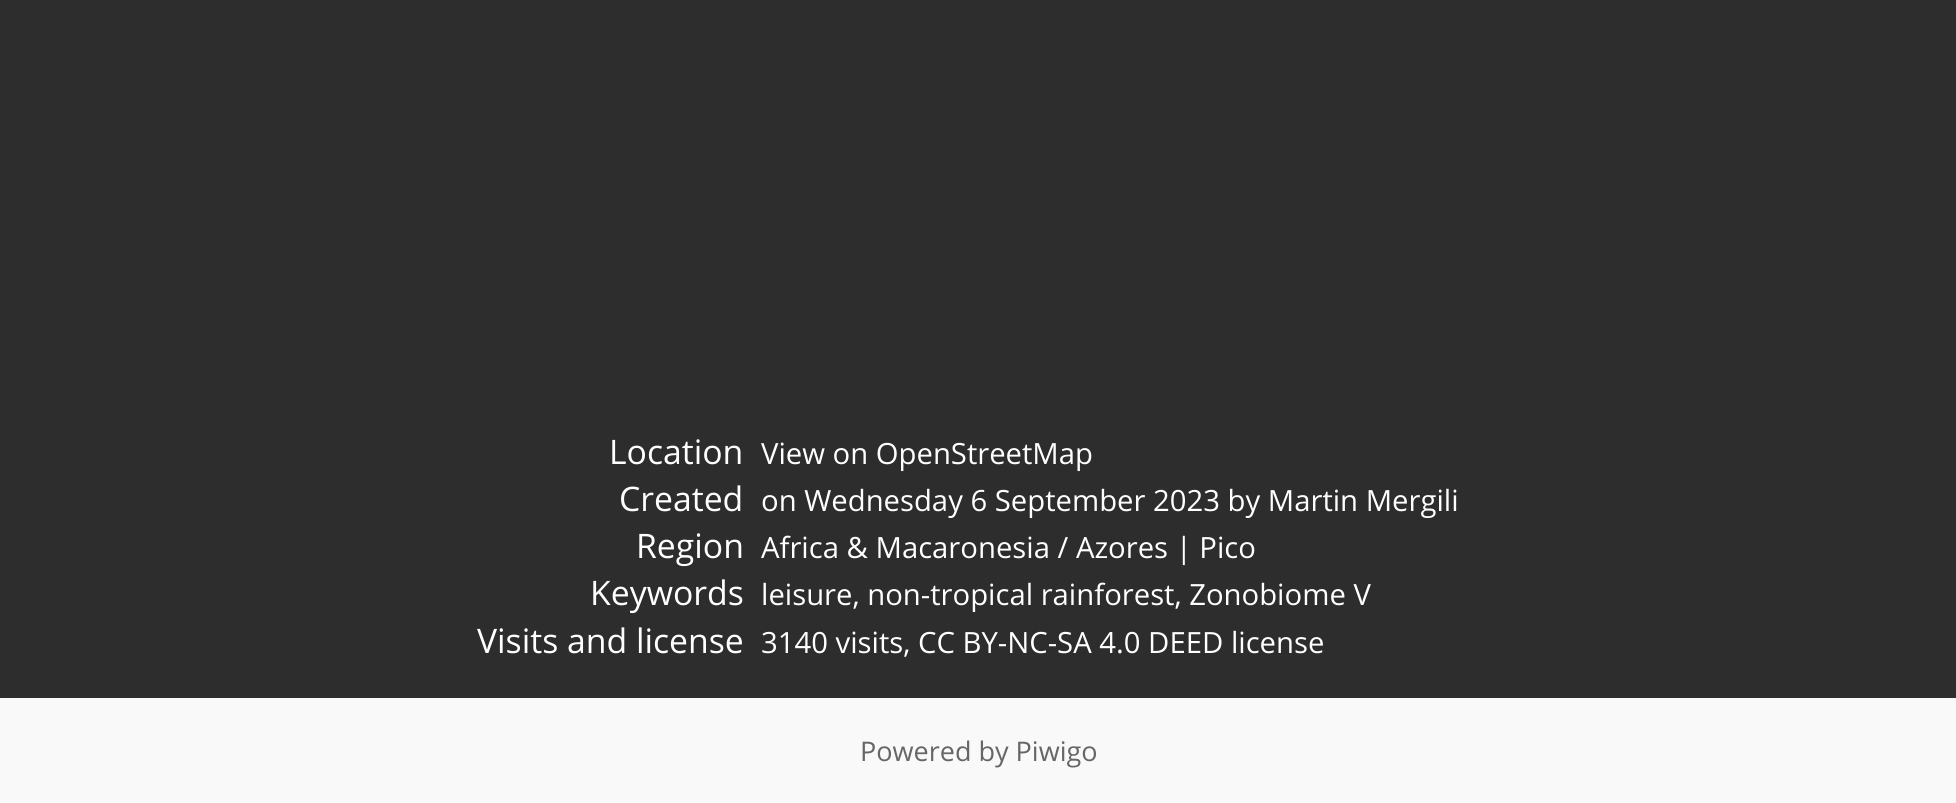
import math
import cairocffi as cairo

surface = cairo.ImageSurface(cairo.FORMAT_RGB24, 1956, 803)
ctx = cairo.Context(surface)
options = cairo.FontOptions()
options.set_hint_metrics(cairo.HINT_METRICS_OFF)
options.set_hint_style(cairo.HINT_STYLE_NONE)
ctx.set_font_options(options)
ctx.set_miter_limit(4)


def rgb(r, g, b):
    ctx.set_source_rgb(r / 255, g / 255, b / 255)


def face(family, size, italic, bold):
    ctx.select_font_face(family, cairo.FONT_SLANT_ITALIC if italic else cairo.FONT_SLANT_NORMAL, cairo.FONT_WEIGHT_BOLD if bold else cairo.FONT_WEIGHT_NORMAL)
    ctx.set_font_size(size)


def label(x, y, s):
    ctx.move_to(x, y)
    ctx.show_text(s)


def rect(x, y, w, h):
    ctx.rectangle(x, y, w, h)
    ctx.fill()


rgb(249, 249, 249)
ctx.paint()
rgb(45, 45, 45)
rect(0, 0, 1956, 698)
face('Open Sans', 33.75, 0, 0)
rgb(255, 255, 255)
label(609, 464, 'Location')
face('Open Sans', 29.25, 0, 0)
label(761, 464, 'View on OpenStreetMap')
face('Open Sans', 33.75, 0, 0)
label(619, 511, 'Created')
face('Open Sans', 29.25, 0, 0)
label(761, 511, 'on Wednesday 6 September 2023 by Martin Mergili')
face('Open Sans', 33.75, 0, 0)
label(636, 558, 'Region')
face('Open Sans', 29.25, 0, 0)
label(761, 558, 'Africa & Macaronesia / Azores | Pico')
face('Open Sans', 33.75, 0, 0)
label(590, 605, 'Keywords')
face('Open Sans', 29.25, 0, 0)
label(761, 605, 'leisure, non-tropical rainforest, Zonobiome V')
face('Open Sans', 33.75, 0, 0)
label(477, 653, 'Visits and license')
face('Open Sans', 29.25, 0, 0)
label(761, 653, '3140 visits, CC BY-NC-SA 4.0 DEED license')
face('Open Sans', 27, 0, 0)
rgb(102, 102, 102)
label(860, 761, 'Powered by Piwigo')
surface.write_to_png('render.png')
